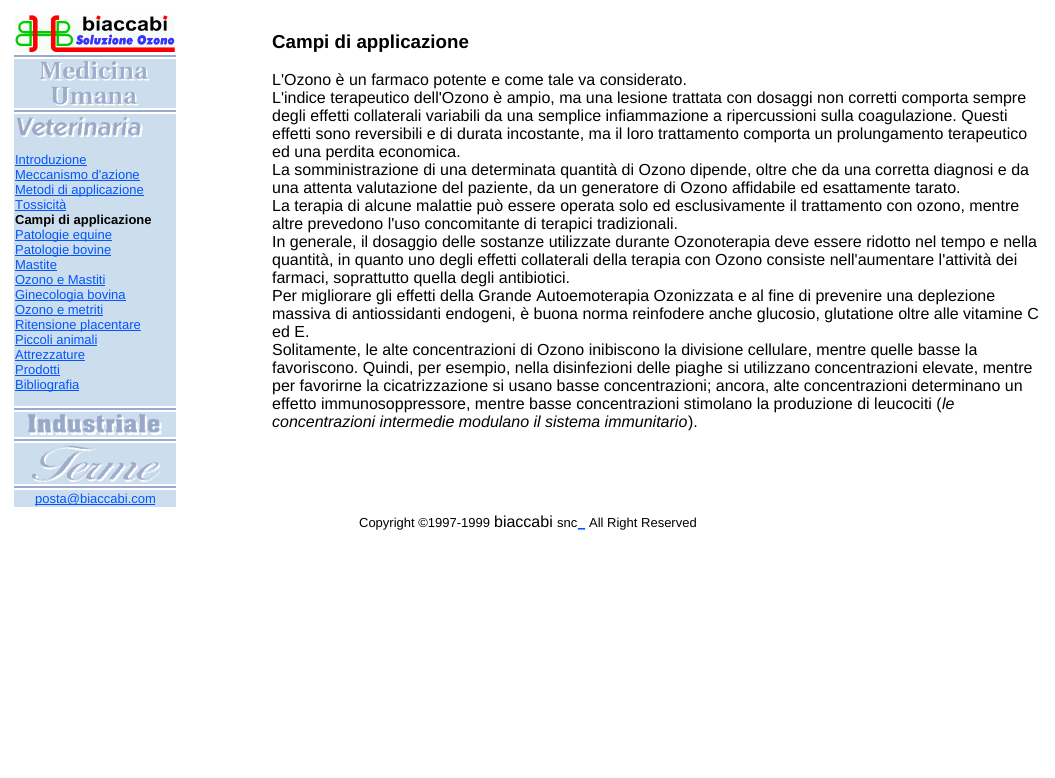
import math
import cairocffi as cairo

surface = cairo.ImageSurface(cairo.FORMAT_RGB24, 1055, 778)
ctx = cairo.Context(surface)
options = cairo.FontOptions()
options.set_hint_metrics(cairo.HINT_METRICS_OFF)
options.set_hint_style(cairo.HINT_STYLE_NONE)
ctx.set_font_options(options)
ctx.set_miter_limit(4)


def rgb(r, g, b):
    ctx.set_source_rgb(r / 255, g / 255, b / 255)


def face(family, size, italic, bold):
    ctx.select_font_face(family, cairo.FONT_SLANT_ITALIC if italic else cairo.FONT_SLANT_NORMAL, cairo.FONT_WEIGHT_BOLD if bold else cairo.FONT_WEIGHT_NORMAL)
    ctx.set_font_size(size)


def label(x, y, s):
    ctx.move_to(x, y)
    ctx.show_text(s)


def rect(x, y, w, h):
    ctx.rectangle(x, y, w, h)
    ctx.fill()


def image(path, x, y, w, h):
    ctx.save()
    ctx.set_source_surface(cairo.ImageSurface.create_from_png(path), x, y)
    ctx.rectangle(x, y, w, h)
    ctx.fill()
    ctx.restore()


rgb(255, 255, 255)
ctx.paint()
image('image0.png', 15, 15, 160, 37)
rgb(153, 170, 204)
rect(14, 55, 162, 2)
rgb(204, 221, 238)
rect(14, 59, 162, 49)
image('image1.png', 40, 60, 110, 46)
rgb(153, 170, 204)
rect(14, 110, 162, 2)
rgb(204, 221, 238)
rect(14, 114, 162, 292)
image('image2.png', 17, 116, 126, 22)
face('Liberation Sans', 13, 0, 0)
rgb(0, 85, 255)
label(15, 164, 'Introduzione')
rect(15, 165, 72, 1)
label(15, 179, 'Meccanismo d\'azione')
rect(15, 180, 125, 1)
rect(15, 195, 129, 1)
label(15, 194, 'Metodi di applicazione')
label(15, 209, 'Tossicità')
rect(15, 210, 51, 1)
face('Liberation Sans', 13, 0, 1)
rgb(0, 0, 0)
label(15, 224, 'Campi di applicazione')
rgb(0, 85, 255)
rect(15, 240, 97, 1)
face('Liberation Sans', 13, 0, 0)
label(15, 239, 'Patologie equine')
rect(15, 255, 96, 1)
label(15, 254, 'Patologie bovine')
label(15, 269, 'Mastite')
rect(15, 270, 42, 1)
label(15, 284, 'Ozono e Mastiti')
rect(15, 285, 90, 1)
rect(15, 300, 111, 1)
label(15, 299, 'Ginecologia bovina')
label(15, 314, 'Ozono e metriti')
rect(15, 315, 88, 1)
rect(15, 330, 126, 1)
label(15, 329, 'Ritensione placentare')
label(15, 344, 'Piccoli animali')
rect(15, 345, 82, 1)
label(15, 359, 'Attrezzature')
rect(15, 360, 70, 1)
label(15, 374, 'Prodotti')
rect(15, 375, 45, 1)
rect(15, 390, 64, 1)
label(15, 389, 'Bibliografia')
rgb(153, 170, 204)
rect(14, 408, 162, 2)
rgb(204, 221, 238)
rect(14, 412, 162, 25)
image('image3.png', 28, 414, 134, 22)
rgb(153, 170, 204)
rect(14, 439, 162, 2)
rgb(204, 221, 238)
rect(14, 443, 162, 41)
image('image4.png', 31, 445, 129, 37)
rgb(153, 170, 204)
rect(14, 486, 162, 2)
rgb(204, 221, 238)
rect(14, 490, 162, 17)
rgb(0, 85, 255)
rect(35, 504, 120, 1)
label(35, 503, 'posta@biaccabi.com')
face('Liberation Sans', 18.75, 0, 1)
rgb(0, 0, 0)
label(272, 48, 'Campi di applicazione')
face('Liberation Sans', 16, 0, 0)
label(272, 85, 'L\'Ozono è un farmaco potente e come tale va considerato.')
label(272, 103, 'L\'indice terapeutico dell\'Ozono è ampio, ma una lesione trattata con dosaggi non corretti comporta sempre')
label(272, 121, 'degli effetti collaterali variabili da una semplice infiammazione a ripercussioni sulla coagulazione. Questi')
label(272, 139, 'effetti sono reversibili e di durata incostante, ma il loro trattamento comporta un prolungamento terapeutico')
label(272, 157, 'ed una perdita economica.')
label(272, 175, 'La somministrazione di una determinata quantità di Ozono dipende, oltre che da una corretta diagnosi e da')
label(272, 193, 'una attenta valutazione del paziente, da un generatore di Ozono affidabile ed esattamente tarato.')
label(272, 211, 'La terapia di alcune malattie può essere operata solo ed esclusivamente il trattamento con ozono, mentre')
label(272, 229, 'altre prevedono l\'uso concomitante di terapici tradizionali.')
label(272, 247, 'In generale, il dosaggio delle sostanze utilizzate durante Ozonoterapia deve essere ridotto nel tempo e nella')
label(272, 265, 'quantità, in quanto uno degli effetti collaterali della terapia con Ozono consiste nell\'aumentare l\'attività dei')
label(272, 283, 'farmaci, soprattutto quella degli antibiotici.')
label(272, 301, 'Per migliorare gli effetti della Grande Autoemoterapia Ozonizzata e al fine di prevenire una deplezione')
label(272, 319, 'massiva di antiossidanti endogeni, è buona norma reinfodere anche glucosio, glutatione oltre alle vitamine C')
label(272, 337, 'ed E.')
label(272, 355, 'Solitamente, le alte concentrazioni di Ozono inibiscono la divisione cellulare, mentre quelle basse la')
label(272, 373, 'favoriscono. Quindi, per esempio, nella disinfezioni delle piaghe si utilizzano concentrazioni elevate, mentre')
label(272, 391, 'per favorirne la cicatrizzazione si usano basse concentrazioni; ancora, alte concentrazioni determinano un')
label(272, 409, 'effetto immunosoppressore, mentre basse concentrazioni stimolano la produzione di leucociti (')
face('Liberation Sans', 16, 1, 0)
label(942, 409, 'le')
label(272, 427, 'concentrazioni intermedie modulano il sistema immunitario')
face('Liberation Sans', 16, 0, 0)
label(688, 427, ').')
face('Liberation Sans', 13, 0, 0)
label(359, 527, 'Copyright ©1997-1999')
face('Liberation Sans', 16, 0, 0)
label(494, 527, 'biaccabi')
face('Liberation Sans', 13, 0, 0)
label(557, 527, 'snc')
label(589, 527, 'All Right Reserved')
rgb(0, 85, 255)
rect(578, 528, 7, 1)
label(578, 527, '_')
surface.write_to_png('render.png')
